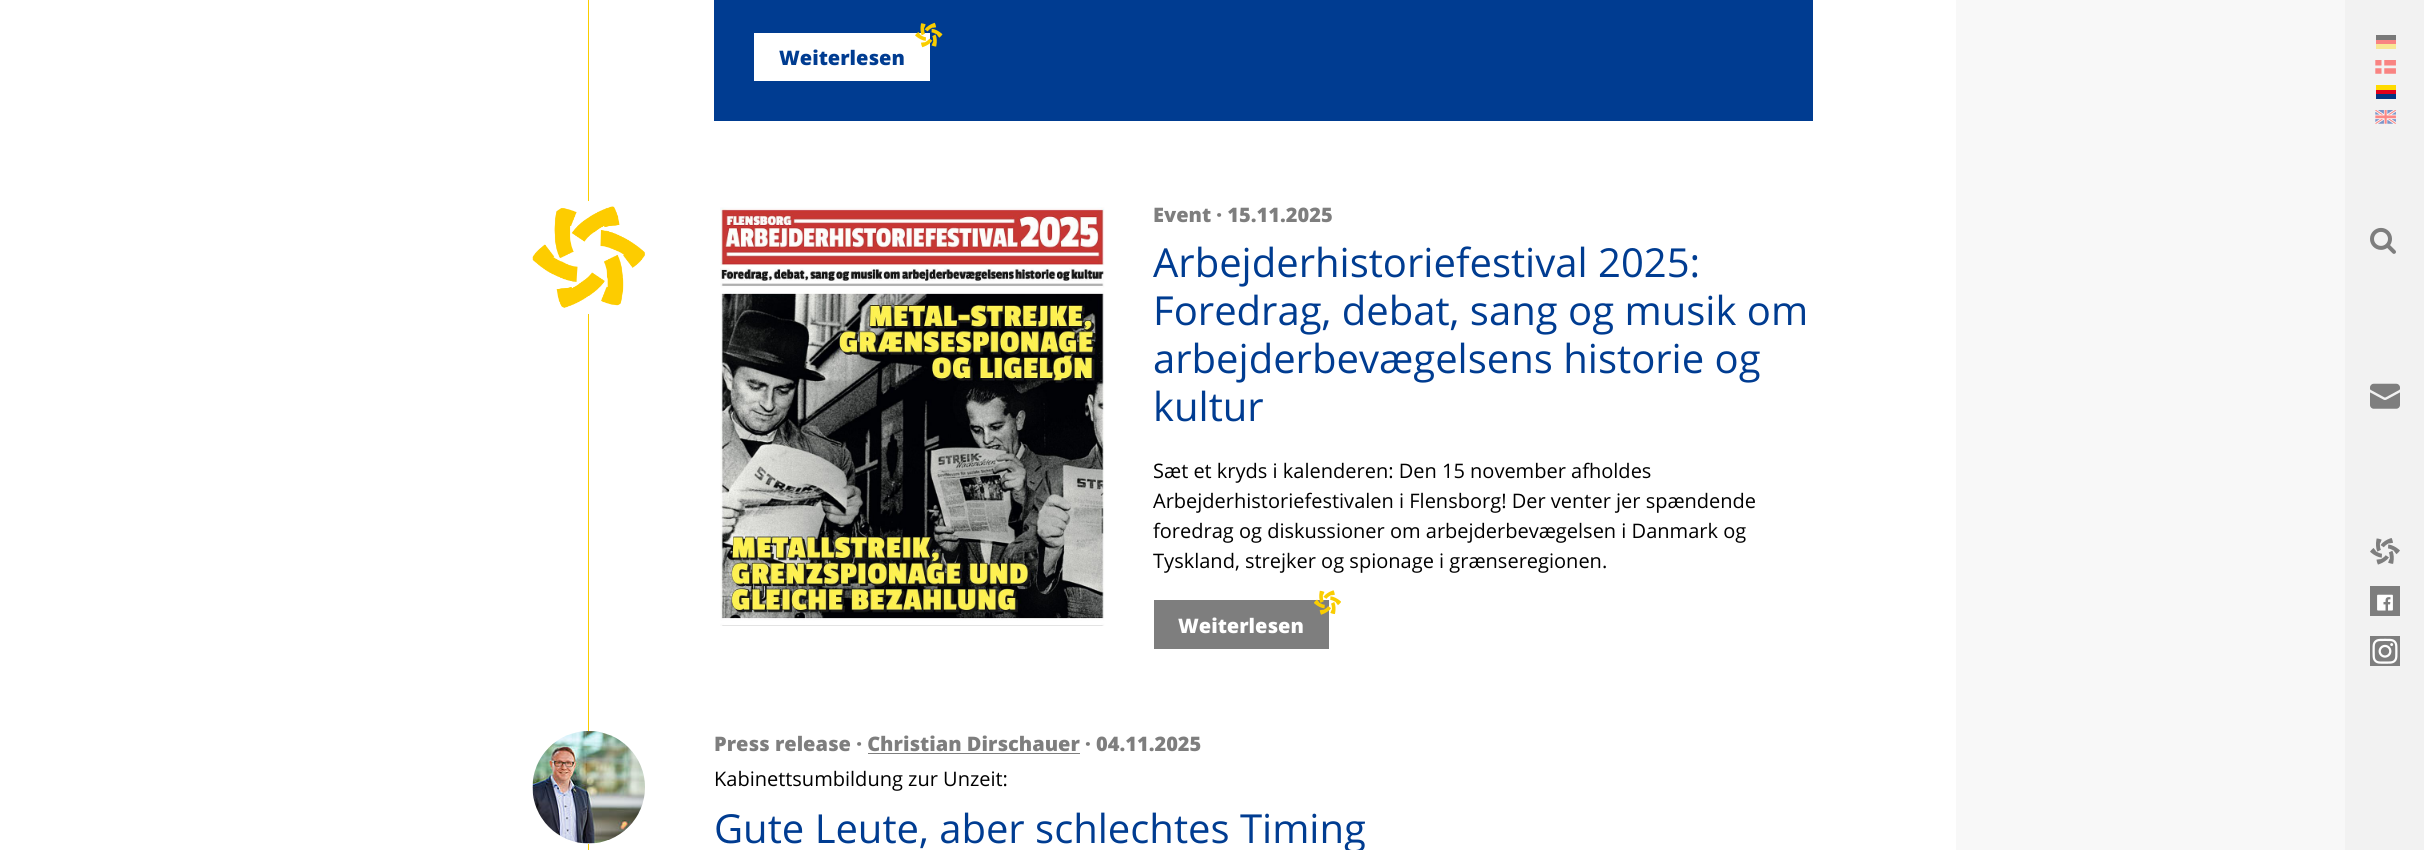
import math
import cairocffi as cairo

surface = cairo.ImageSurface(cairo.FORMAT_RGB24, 2424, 850)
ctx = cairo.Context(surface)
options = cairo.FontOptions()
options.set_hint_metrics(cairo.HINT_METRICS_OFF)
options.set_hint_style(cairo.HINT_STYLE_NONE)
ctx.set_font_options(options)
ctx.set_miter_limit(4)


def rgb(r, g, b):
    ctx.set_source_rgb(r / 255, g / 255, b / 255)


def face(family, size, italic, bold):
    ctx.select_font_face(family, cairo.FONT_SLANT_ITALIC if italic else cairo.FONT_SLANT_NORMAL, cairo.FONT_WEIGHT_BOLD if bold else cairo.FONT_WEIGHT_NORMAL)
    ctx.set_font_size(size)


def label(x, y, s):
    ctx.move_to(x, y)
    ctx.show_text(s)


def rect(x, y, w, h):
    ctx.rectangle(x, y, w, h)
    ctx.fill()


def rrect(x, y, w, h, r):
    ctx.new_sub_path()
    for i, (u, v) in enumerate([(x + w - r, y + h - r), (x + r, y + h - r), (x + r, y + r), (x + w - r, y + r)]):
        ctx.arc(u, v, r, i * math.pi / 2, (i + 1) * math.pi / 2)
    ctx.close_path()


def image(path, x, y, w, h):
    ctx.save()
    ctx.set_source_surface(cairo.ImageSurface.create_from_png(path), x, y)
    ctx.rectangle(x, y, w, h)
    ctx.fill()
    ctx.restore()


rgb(255, 255, 255)
ctx.paint()
rgb(250, 205, 0)
rect(588, 0, 1, 850)
rgb(0, 60, 145)
rect(714, 0, 1099, 121)
rgb(255, 255, 255)
rect(754, 33, 176, 48)
image('image0.png', 915, 22, 28, 26)
face('Open Sans ExtraBold', 20, 0, 0)
rgb(0, 60, 145)
label(779, 65, 'Weiterlesen')
image('image1.png', 720, 207, 385, 419)
rgb(255, 255, 255)
rrect(533, 201, 112, 113, 56)
ctx.fill()
image('image2.png', 532, 206, 113, 102)
rgb(126, 126, 126)
label(1153, 222, 'Event · 15.11.2025')
face('Open Sans', 40, 0, 0)
rgb(0, 60, 145)
label(1153, 277, 'Arbejderhistoriefestival 2025:')
label(1153, 325, 'Foredrag, debat, sang og musik om')
label(1153, 373, 'arbejderbevægelsens historie og')
label(1153, 421, 'kultur')
face('Open Sans', 20, 0, 0)
rgb(0, 0, 0)
label(1153, 478, 'Sæt et kryds i kalenderen: Den 15 november afholdes')
label(1153, 508, 'Arbejderhistoriefestivalen i Flensborg! Der venter jer spændende')
label(1153, 538, 'foredrag og diskussioner om arbejderbevægelsen i Danmark og')
label(1153, 568, 'Tyskland, strejker og spionage i grænseregionen.')
rgb(126, 126, 126)
rect(1154, 600, 175, 49)
image('image3.png', 1314, 590, 27, 25)
face('Open Sans ExtraBold', 20, 0, 0)
rgb(255, 255, 255)
label(1178, 633, 'Weiterlesen')
rrect(533, 731, 112, 113, 56)
ctx.fill()
image('image4.png', 532, 731, 113, 113)
rgb(126, 126, 126)
label(714, 751, 'Press release · Christian Dirschauer')
label(1085, 751, '· 04.11.2025')
rect(868, 753, 212, 1)
face('Open Sans', 20, 0, 0)
rgb(0, 0, 0)
label(714, 786, 'Kabinettsumbildung zur Unzeit:')
face('Open Sans', 40, 0, 0)
rgb(0, 60, 145)
label(714, 843, 'Gute Leute, aber schlechtes Timing')
rgb(248, 248, 248)
rect(1956, 0, 389, 850)
rgb(242, 242, 242)
rect(2345, 0, 79, 850)
rgb(121, 121, 121)
rect(2376, 35, 20, 5)
rgb(249, 132, 130)
rect(2376, 40, 20, 4)
rgb(248, 231, 148)
rect(2376, 44, 20, 5)
image('image5.png', 2375, 60, 21, 14)
rgb(255, 219, 0)
rect(2376, 85, 20, 5)
rgb(226, 0, 26)
rect(2376, 90, 20, 4)
rgb(4, 54, 130)
rect(2376, 94, 20, 5)
image('image6.png', 2375, 110, 21, 14)
image('image7.png', 2370, 227, 26, 27)
image('image8.png', 2370, 383, 30, 26)
image('image9.png', 2370, 538, 30, 27)
rgb(126, 126, 126)
rect(2370, 586, 30, 30)
image('image10.png', 2377, 594, 16, 17)
rect(2370, 636, 30, 30)
image('image11.png', 2372, 638, 26, 26)
surface.write_to_png('render.png')
